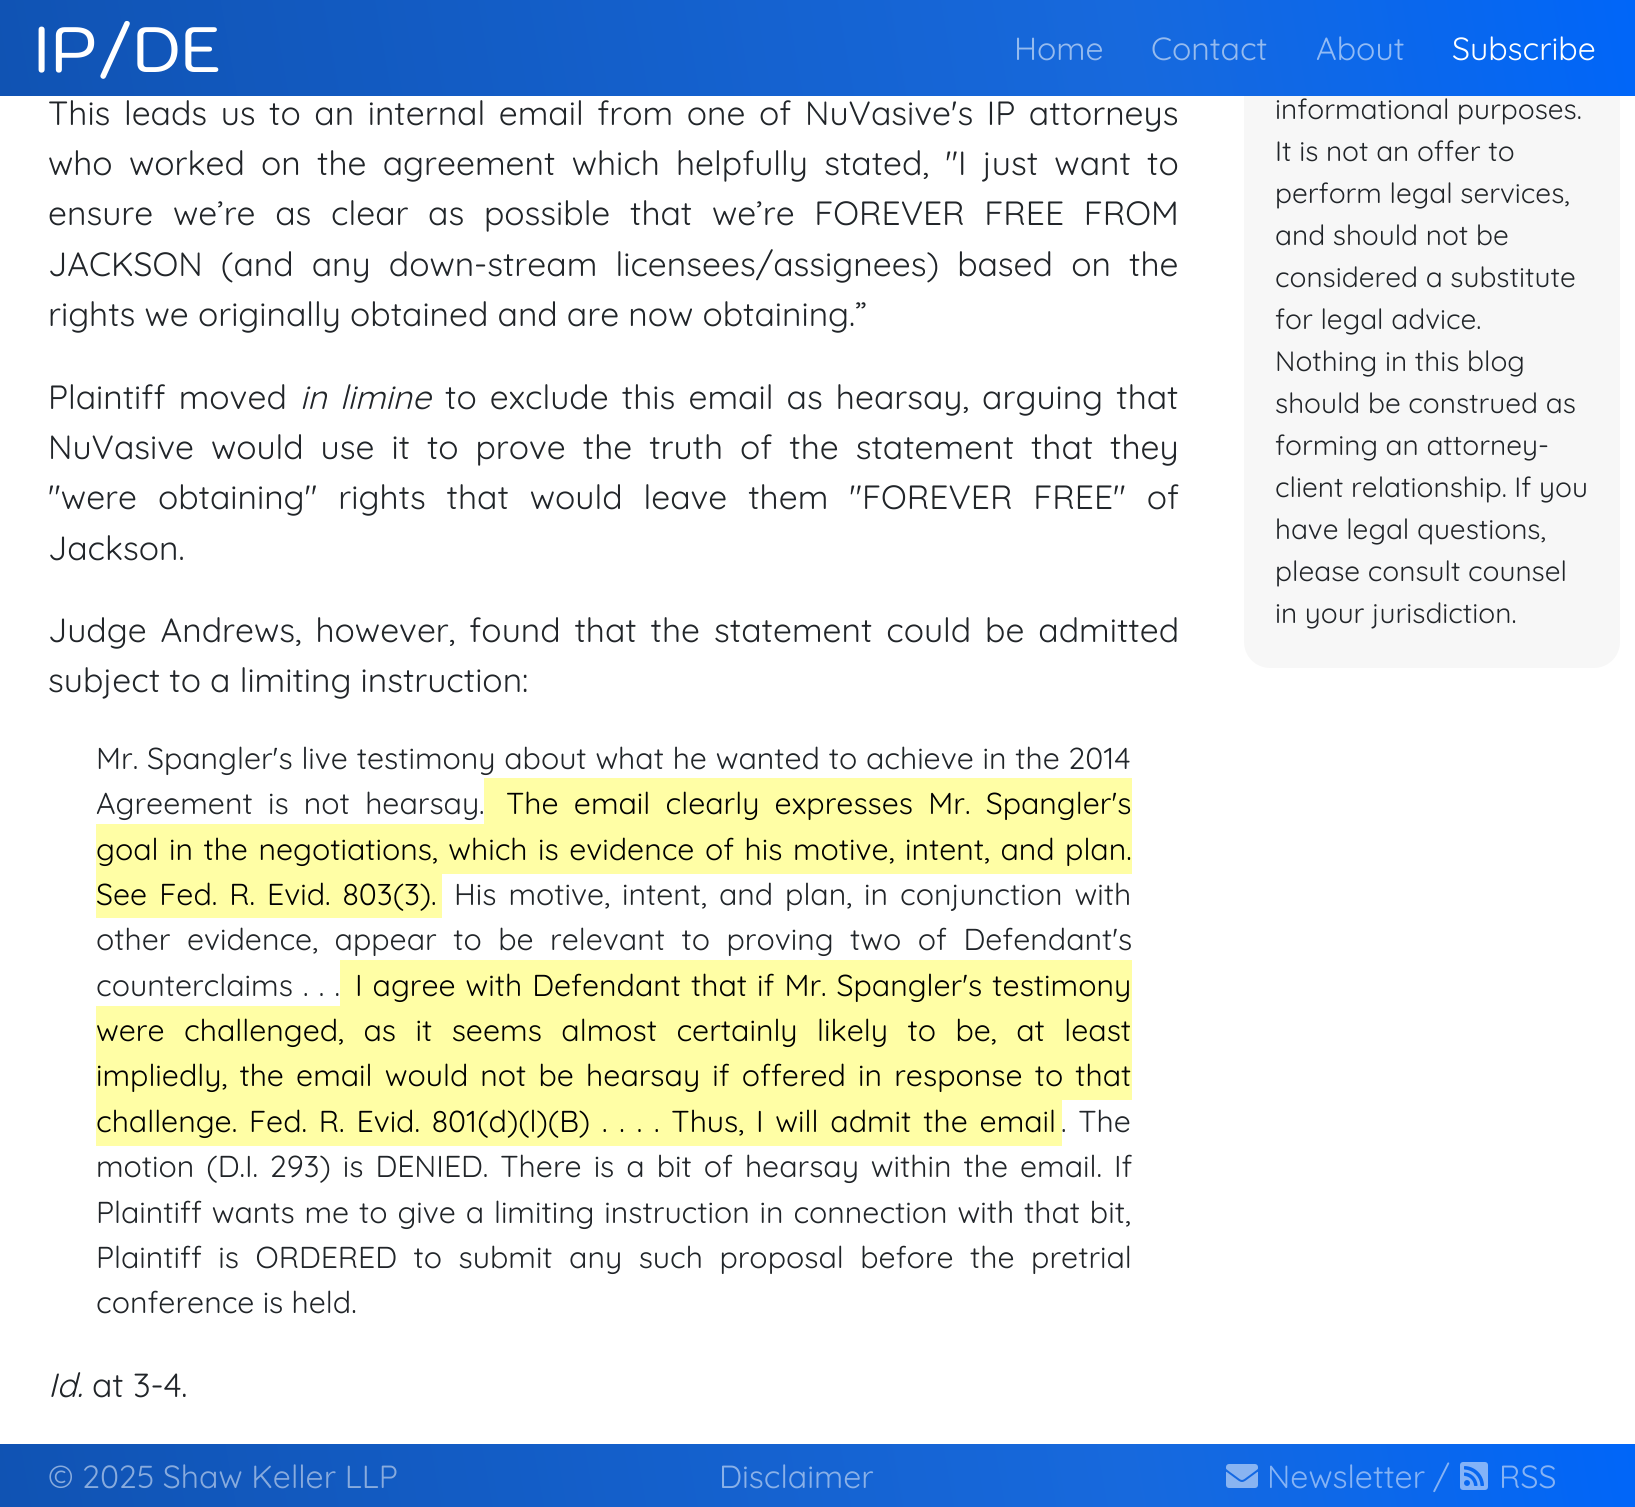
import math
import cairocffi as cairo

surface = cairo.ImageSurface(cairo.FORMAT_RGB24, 1635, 1507)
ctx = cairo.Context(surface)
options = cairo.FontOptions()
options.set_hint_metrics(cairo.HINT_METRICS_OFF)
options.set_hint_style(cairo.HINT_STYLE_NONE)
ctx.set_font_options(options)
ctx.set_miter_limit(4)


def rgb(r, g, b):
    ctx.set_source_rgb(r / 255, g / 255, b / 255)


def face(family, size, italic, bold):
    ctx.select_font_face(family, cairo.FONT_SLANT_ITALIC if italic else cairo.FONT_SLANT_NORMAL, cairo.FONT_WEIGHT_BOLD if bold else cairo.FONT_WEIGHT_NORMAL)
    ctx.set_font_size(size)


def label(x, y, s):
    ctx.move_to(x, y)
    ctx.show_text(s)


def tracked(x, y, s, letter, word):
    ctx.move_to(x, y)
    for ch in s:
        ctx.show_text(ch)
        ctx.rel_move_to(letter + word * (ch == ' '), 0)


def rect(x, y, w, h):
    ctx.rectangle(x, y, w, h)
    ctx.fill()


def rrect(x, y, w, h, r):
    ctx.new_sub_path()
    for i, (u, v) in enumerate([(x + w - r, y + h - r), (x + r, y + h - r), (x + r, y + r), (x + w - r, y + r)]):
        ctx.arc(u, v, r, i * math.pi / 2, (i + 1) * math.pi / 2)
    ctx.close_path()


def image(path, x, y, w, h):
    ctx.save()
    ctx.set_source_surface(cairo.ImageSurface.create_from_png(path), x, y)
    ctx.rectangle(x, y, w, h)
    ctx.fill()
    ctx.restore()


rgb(255, 255, 255)
ctx.paint()
rgb(247, 247, 247)
rrect(1244, -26, 376, 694, 26)
ctx.fill()
gradient = cairo.LinearGradient(16, 189, 1620, -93)
gradient.add_color_stop_rgba(0, 0.063, 0.325, 0.702, 1)
gradient.add_color_stop_rgba(0.69, 0.09, 0.412, 0.867, 1)
gradient.add_color_stop_rgba(1, 0, 0.4, 0.976, 1)
ctx.set_source(gradient)
rect(0, 0, 1635, 96)
face('Kodchasan Medium', 64, 0, 0)
rgb(255, 255, 255)
label(32, 72, 'IP/DE')
face('Quicksand', 32, 0, 0)
rgb(150, 187, 238)
label(1014, 60, 'Home')
label(1151, 60, 'Contact')
rgb(146, 187, 245)
label(1316, 60, 'About')
rgb(255, 255, 255)
label(1452, 60, 'Subscribe')
face('Quicksand', 33.6, 0, 0)
rgb(33, 37, 41)
tracked(48, 125, 'This leads us to an internal email from one of NuVasive\'s IP attorneys', 0, 4.4)
tracked(48, 175, 'who worked on the agreement which helpfully stated, "I just want to', 0, 7.1)
tracked(48, 225, 'ensure we’re as clear as possible that we’re FOREVER FREE FROM', 0, 10.5)
tracked(48, 276, 'JACKSON (and any down-stream licensees/assignees) based on the', 0, 9)
label(48, 326, 'rights we originally obtained and are now obtaining.”')
tracked(48, 409, 'Plaintiff moved', 0, 4)
face('Quicksand', 33.6, 1, 0)
tracked(300, 409, 'in limine', 0, 4)
face('Quicksand', 33.6, 0, 0)
tracked(445, 409, 'to exclude this email as hearsay, arguing that', 0, 4)
tracked(48, 459, 'NuVasive would use it to prove the truth of the statement that they', 0, 7.75)
tracked(48, 509, '"were obtaining" rights that would leave them "FOREVER FREE" of', 0, 11.75)
label(48, 560, 'Jackson.')
tracked(48, 642, 'Judge Andrews, however, found that the statement could be admitted', 0, 4.75)
label(48, 692, 'subject to a limiting instruction:')
face('Quicksand', 30.25, 0, 0)
tracked(96, 769, 'Mr. Spangler\'s live testimony about what he wanted to achieve in the 2014', 0, 0.5)
tracked(96, 814, 'Agreement is not hearsay.', 0, 7)
rgb(255, 254, 165)
rect(484, 778, 648, 46)
rgb(0, 0, 0)
tracked(506, 814, 'The email clearly expresses Mr. Spangler\'s', 0, 7)
rgb(255, 254, 165)
rect(96, 824, 1036, 50)
rgb(0, 0, 0)
tracked(96, 860, 'goal in the negotiations, which is evidence of his motive, intent, and plan.', 0, 2.25)
rgb(255, 254, 165)
rect(96, 874, 346, 44)
rgb(0, 0, 0)
tracked(96, 905, 'See Fed. R. Evid. 803(3).', 0, 3.75)
rgb(33, 37, 41)
tracked(454, 905, 'His motive, intent, and plan, in conjunction with', 0, 3.75)
tracked(96, 950, 'other evidence, appear to be relevant to proving two of Defendant\'s', 0, 8.25)
tracked(96, 996, 'counterclaims . . .', 0, 2)
rgb(255, 254, 165)
rect(340, 960, 792, 46)
rgb(0, 0, 0)
tracked(355, 996, 'I agree with Defendant that if Mr. Spangler\'s testimony', 0, 1.75)
rgb(255, 254, 165)
rect(96, 1006, 1036, 94)
rgb(0, 0, 0)
tracked(96, 1041, 'were challenged, as it seems almost certainly likely to be, at least', 0, 11.25)
tracked(96, 1086, 'impliedly, the email would not be hearsay if offered in response to that', 0, 3.9)
rgb(255, 254, 165)
rect(96, 1100, 966, 46)
rgb(0, 0, 0)
tracked(96, 1132, 'challenge. Fed. R. Evid. 801(d)(l)(B) . . . . Thus, I will admit the email', 0, 3.6)
rgb(33, 37, 41)
tracked(1061, 1132, '. The', 0, 3.6)
tracked(96, 1177, 'motion (D.I. 293) is DENIED. There is a bit of hearsay within the email. If', 0, 3.75)
tracked(96, 1223, 'Plaintiff wants me to give a limiting instruction in connection with that bit,', 0, 1.6)
tracked(96, 1268, 'Plaintiff is ORDERED to submit any such proposal before the pretrial', 0, 8.25)
label(96, 1313, 'conference is held.')
face('Quicksand', 33.6, 1, 0)
label(48, 1397, 'Id.')
face('Quicksand', 33.6, 0, 0)
label(92, 1397, 'at 3-4.')
face('Quicksand', 28, 0, 0)
label(1275, 119, 'informational purposes.')
label(1275, 161, 'It is not an offer to')
label(1275, 203, 'perform legal services,')
label(1275, 245, 'and should not be')
label(1275, 287, 'considered a substitute')
label(1275, 329, 'for legal advice.')
label(1275, 371, 'Nothing in this blog')
label(1275, 413, 'should be construed as')
label(1275, 455, 'forming an attorney-')
label(1275, 497, 'client relationship. If you')
label(1275, 539, 'have legal questions,')
label(1275, 581, 'please consult counsel')
label(1275, 623, 'in your jurisdiction.')
gradient = cairo.LinearGradient(19, 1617, 1617, 1335)
gradient.add_color_stop_rgba(0, 0.063, 0.325, 0.702, 1)
gradient.add_color_stop_rgba(0.69, 0.09, 0.412, 0.867, 1)
gradient.add_color_stop_rgba(1, 0, 0.4, 0.976, 1)
ctx.set_source(gradient)
rect(0, 1444, 1635, 63)
face('Quicksand', 32, 0, 0)
rgb(136, 171, 221)
label(48, 1488, '© 2025 Shaw Keller LLP')
rgb(138, 177, 232)
label(719, 1488, 'Disclaimer')
image('image0.png', 1226, 1464, 32, 24)
rgb(134, 179, 244)
label(1267, 1488, 'Newsletter')
label(1433, 1488, '/')
image('image1.png', 1460, 1462, 28, 28)
label(1499, 1488, 'RSS')
surface.write_to_png('render.png')
